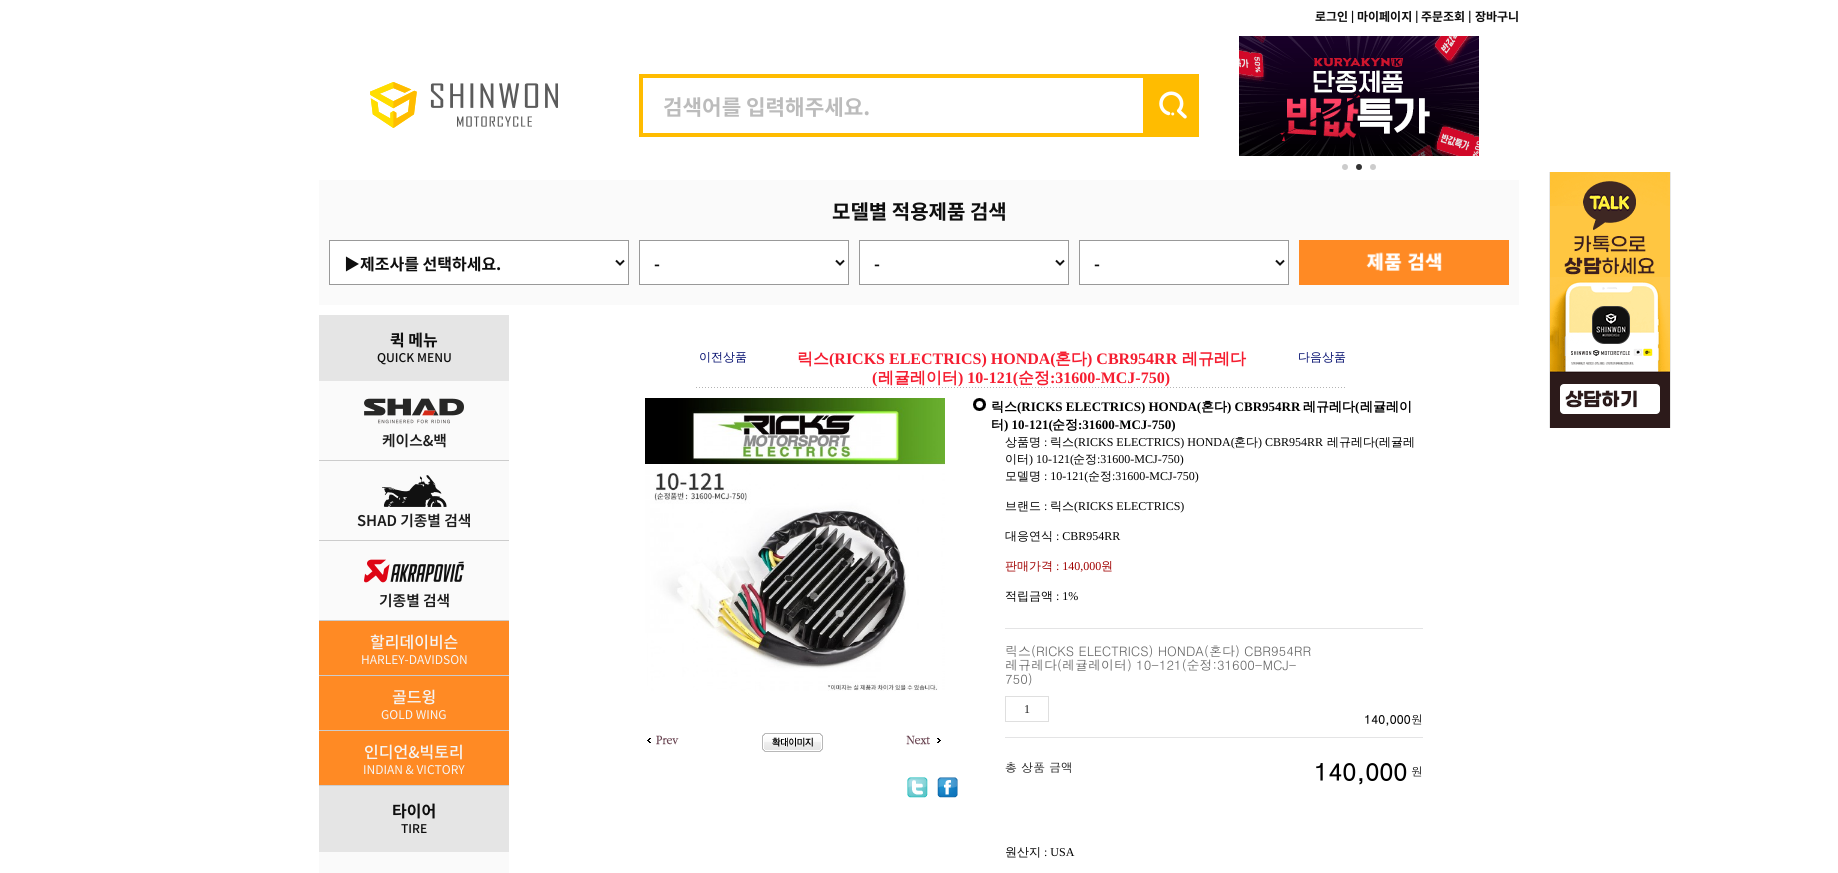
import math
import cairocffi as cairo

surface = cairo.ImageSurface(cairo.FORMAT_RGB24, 1838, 873)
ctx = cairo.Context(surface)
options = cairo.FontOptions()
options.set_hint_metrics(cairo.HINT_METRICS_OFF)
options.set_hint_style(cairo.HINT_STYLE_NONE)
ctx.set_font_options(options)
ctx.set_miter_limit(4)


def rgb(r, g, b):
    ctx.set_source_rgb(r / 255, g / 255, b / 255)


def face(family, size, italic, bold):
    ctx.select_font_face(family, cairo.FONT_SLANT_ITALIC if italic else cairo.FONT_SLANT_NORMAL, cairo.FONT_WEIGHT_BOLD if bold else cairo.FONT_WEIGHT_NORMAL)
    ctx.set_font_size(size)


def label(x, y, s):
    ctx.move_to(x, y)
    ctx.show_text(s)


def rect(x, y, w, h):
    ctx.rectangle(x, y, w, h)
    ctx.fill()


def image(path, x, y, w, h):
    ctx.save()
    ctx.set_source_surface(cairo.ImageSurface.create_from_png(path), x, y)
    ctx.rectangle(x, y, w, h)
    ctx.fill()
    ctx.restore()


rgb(255, 255, 255)
ctx.paint()
ctx.save()
ctx.rectangle(1315, 8, 39, 15)
ctx.clip()
face('Noto Sans KR', 12, 0, 1)
rgb(14, 14, 14)
label(1315, 21, '로그인 |')
ctx.restore()
ctx.save()
ctx.rectangle(1357, 8, 61, 15)
ctx.clip()
face('Noto Sans KR', 12, 0, 1)
rgb(14, 14, 14)
label(1357, 21, '마이페이지 |')
ctx.restore()
ctx.save()
ctx.rectangle(1421, 8, 51, 15)
ctx.clip()
face('Noto Sans KR', 12, 0, 1)
rgb(14, 14, 14)
label(1421, 21, '주문조회 |')
ctx.restore()
face('Noto Sans KR', 12, 0, 1)
rgb(14, 14, 14)
label(1475, 21, '장바구니')
image('image0.png', 370, 82, 188, 46)
ctx.rectangle(641, 76, 504, 59)
rgb(255, 188, 0)
ctx.set_line_width(4)
ctx.stroke()
face('Noto Sans KR', 21.25, 0, 1)
rgb(188, 188, 188)
label(663, 115, '검색어를 입력해주세요.')
rgb(255, 188, 0)
rect(1147, 74, 52, 63)
image('image1.png', 1159, 91, 28, 28)
image('image2.png', 1239, 36, 240, 120)
rgb(204, 204, 204)
ctx.arc(1345, 167, 3, 0, 2 * math.pi)
ctx.fill()
rgb(51, 51, 51)
ctx.arc(1359, 167, 3, 0, 2 * math.pi)
ctx.fill()
rgb(204, 204, 204)
ctx.arc(1373, 167, 3, 0, 2 * math.pi)
ctx.fill()
rgb(250, 250, 250)
rect(319, 180, 1200, 125)
face('Noto Sans KR', 20, 0, 1)
rgb(14, 14, 14)
label(832, 219, '모델별 적용제품 검색')
rgb(255, 255, 255)
ctx.rectangle(329.5, 240.5, 299, 44)
ctx.fill_preserve()
rgb(153, 153, 153)
ctx.set_line_width(1)
ctx.stroke()
ctx.new_path()
ctx.move_to(616, 260.5)
ctx.line_to(620, 264.5)
ctx.line_to(624, 260.5)
rgb(18, 18, 18)
ctx.set_line_width(2)
ctx.stroke()
face('Noto Sans KR', 16, 0, 1)
rgb(14, 14, 14)
label(344, 270, '▶제조사를 선택하세요.')
rgb(255, 255, 255)
ctx.rectangle(639.5, 240.5, 209, 44)
ctx.fill_preserve()
rgb(153, 153, 153)
ctx.set_line_width(1)
ctx.stroke()
ctx.new_path()
ctx.move_to(836, 260.5)
ctx.line_to(840, 264.5)
ctx.line_to(844, 260.5)
rgb(18, 18, 18)
ctx.set_line_width(2)
ctx.stroke()
rgb(14, 14, 14)
label(654, 270, '-')
rgb(255, 255, 255)
ctx.rectangle(859.5, 240.5, 209, 44)
ctx.fill_preserve()
rgb(153, 153, 153)
ctx.set_line_width(1)
ctx.stroke()
ctx.new_path()
ctx.move_to(1056, 260.5)
ctx.line_to(1060, 264.5)
ctx.line_to(1064, 260.5)
rgb(18, 18, 18)
ctx.set_line_width(2)
ctx.stroke()
rgb(14, 14, 14)
label(874, 270, '-')
rgb(255, 255, 255)
ctx.rectangle(1079.5, 240.5, 209, 44)
ctx.fill_preserve()
rgb(153, 153, 153)
ctx.set_line_width(1)
ctx.stroke()
ctx.new_path()
ctx.move_to(1276, 260.5)
ctx.line_to(1280, 264.5)
ctx.line_to(1284, 260.5)
rgb(18, 18, 18)
ctx.set_line_width(2)
ctx.stroke()
rgb(14, 14, 14)
label(1094, 270, '-')
rgb(255, 138, 36)
rect(1299, 240, 210, 45)
image('image3.png', 1366, 252, 76, 19)
rgb(250, 250, 250)
rect(319, 381, 190, 492)
rgb(229, 229, 229)
rect(319, 315, 190, 66)
rgb(14, 14, 14)
label(390, 346, '퀵 메뉴')
face('Noto Sans KR Medium', 12, 0, 0)
label(377, 362, 'QUICK MENU')
rgb(204, 204, 204)
rect(319, 460, 190, 1)
image('image4.png', 364, 398, 100, 26)
face('Noto Sans KR SemiBold', 14.75, 0, 0)
rgb(28, 28, 28)
label(382, 446, '케이스&백')
rgb(204, 204, 204)
rect(319, 540, 190, 1)
image('image5.png', 382, 475, 65, 32)
rgb(28, 28, 28)
label(357, 526, 'SHAD 기종별 검색')
rgb(204, 204, 204)
rect(319, 620, 190, 1)
image('image6.png', 364, 559, 100, 24)
rgb(28, 28, 28)
label(379, 606, '기종별 검색')
rgb(255, 138, 36)
rect(319, 621, 190, 54)
rgb(204, 204, 204)
rect(319, 675, 190, 1)
face('Noto Sans KR Medium', 16, 0, 0)
rgb(245, 245, 245)
label(370, 648, '할리데이비슨')
face('Noto Sans KR', 12, 0, 0)
label(361, 664, 'HARLEY-DAVIDSON')
rgb(255, 138, 36)
rect(319, 676, 190, 54)
rgb(204, 204, 204)
rect(319, 730, 190, 1)
face('Noto Sans KR Medium', 16, 0, 0)
rgb(245, 245, 245)
label(392, 703, '골드윙')
face('Noto Sans KR', 12, 0, 0)
label(381, 719, 'GOLD WING')
rgb(255, 138, 36)
rect(319, 731, 190, 54)
rgb(204, 204, 204)
rect(319, 785, 190, 1)
face('Noto Sans KR Medium', 16, 0, 0)
rgb(245, 245, 245)
label(364, 758, '인디언&빅토리')
face('Noto Sans KR', 12, 0, 0)
label(363, 774, 'INDIAN & VICTORY')
rgb(229, 229, 229)
rect(319, 786, 190, 66)
face('Noto Sans KR', 16, 0, 1)
rgb(14, 14, 14)
label(392, 817, '타이어')
face('Noto Sans KR Medium', 12, 0, 0)
label(401, 833, 'TIRE')
face('WenQuanYi Zen Hei Medium', 12, 0, 0)
rgb(4, 15, 111)
label(699, 361, '이전상품')
face('WenQuanYi Zen Hei', 16, 0, 1)
rgb(245, 29, 48)
label(797, 364, '릭스')
face('Liberation Serif', 16, 0, 1)
label(829, 364, '(RICKS ELECTRICS) HONDA(')
face('WenQuanYi Zen Hei', 16, 0, 1)
label(1055, 364, '혼다')
face('Liberation Serif', 16, 0, 1)
label(1087, 364, ') CBR954RR')
face('WenQuanYi Zen Hei', 16, 0, 1)
label(1182, 364, '레규레다')
face('Liberation Serif', 16, 0, 1)
label(872, 383, '(')
face('WenQuanYi Zen Hei', 16, 0, 1)
label(878, 383, '레귤레이터')
face('Liberation Serif', 16, 0, 1)
label(958, 383, ') 10-121(')
face('WenQuanYi Zen Hei', 16, 0, 1)
label(1018, 383, '순정')
face('Liberation Serif', 16, 0, 1)
label(1050, 383, ':31600-MCJ-750)')
face('WenQuanYi Zen Hei Medium', 12, 0, 0)
rgb(4, 15, 111)
label(1298, 361, '다음상품')
image('image7.png', 696, 387, 649, 1)
image('image8.png', 645, 398, 300, 293)
image('image9.png', 647, 735, 32, 10)
image('image10.png', 762, 733, 61, 19)
image('image11.png', 906, 735, 35, 10)
image('image12.png', 907, 777, 21, 21)
image('image13.png', 937, 777, 21, 21)
image('image14.png', 973, 398, 13, 13)
face('WenQuanYi Zen Hei', 13, 0, 1)
rgb(0, 0, 0)
label(991, 411, '릭스')
face('Liberation Serif', 13, 0, 1)
label(1017, 411, '(RICKS ELECTRICS) HONDA(')
face('WenQuanYi Zen Hei', 13, 0, 1)
label(1201, 411, '혼다')
face('Liberation Serif', 13, 0, 1)
label(1227, 411, ') CBR954RR')
face('WenQuanYi Zen Hei', 13, 0, 1)
label(1303, 411, '레규레다')
face('Liberation Serif', 13, 0, 1)
label(1355, 411, '(')
face('WenQuanYi Zen Hei', 13, 0, 1)
label(1360, 411, '레귤레이')
label(991, 429, '터')
face('Liberation Serif', 13, 0, 1)
label(1004, 429, ') 10-121(')
face('WenQuanYi Zen Hei', 13, 0, 1)
label(1052, 429, '순정')
face('Liberation Serif', 13, 0, 1)
label(1078, 429, ':31600-MCJ-750)')
face('WenQuanYi Zen Hei Medium', 12, 0, 0)
label(1005, 446, '상품명')
face('Liberation Serif', 12, 0, 0)
label(1044, 446, ':')
face('WenQuanYi Zen Hei Medium', 12, 0, 0)
label(1050, 446, '릭스')
face('Liberation Serif', 12, 0, 0)
label(1074, 446, '(RICKS ELECTRICS) HONDA(')
face('WenQuanYi Zen Hei Medium', 12, 0, 0)
label(1234, 446, '혼다')
face('Liberation Serif', 12, 0, 0)
label(1258, 446, ') CBR954RR')
face('WenQuanYi Zen Hei Medium', 12, 0, 0)
label(1327, 446, '레규레다')
face('Liberation Serif', 12, 0, 0)
label(1375, 446, '(')
face('WenQuanYi Zen Hei Medium', 12, 0, 0)
label(1379, 446, '레귤레')
label(1005, 463, '이터')
face('Liberation Serif', 12, 0, 0)
label(1029, 463, ') 10-121(')
face('WenQuanYi Zen Hei Medium', 12, 0, 0)
label(1073, 463, '순정')
face('Liberation Serif', 12, 0, 0)
label(1097, 463, ':31600-MCJ-750)')
face('WenQuanYi Zen Hei Medium', 12, 0, 0)
label(1005, 480, '모델명')
face('Liberation Serif', 12, 0, 0)
label(1044, 480, ': 10-121(')
face('WenQuanYi Zen Hei Medium', 12, 0, 0)
label(1088, 480, '순정')
face('Liberation Serif', 12, 0, 0)
label(1112, 480, ':31600-MCJ-750)')
face('WenQuanYi Zen Hei Medium', 12, 0, 0)
label(1005, 510, '브랜드')
face('Liberation Serif', 12, 0, 0)
label(1044, 510, ':')
face('WenQuanYi Zen Hei Medium', 12, 0, 0)
label(1050, 510, '릭스')
face('Liberation Serif', 12, 0, 0)
label(1074, 510, '(RICKS ELECTRICS)')
face('WenQuanYi Zen Hei Medium', 12, 0, 0)
label(1005, 540, '대응연식')
face('Liberation Serif', 12, 0, 0)
label(1056, 540, ': CBR954RR')
face('WenQuanYi Zen Hei Medium', 12, 0, 0)
rgb(160, 0, 0)
label(1005, 570, '판매가격')
face('Liberation Serif', 12, 0, 0)
label(1056, 570, ': 140,000')
face('WenQuanYi Zen Hei Medium', 12, 0, 0)
label(1101, 570, '원')
rgb(0, 0, 0)
label(1005, 600, '적립금액')
face('Liberation Serif', 12, 0, 0)
label(1056, 600, ': 1%')
rgb(228, 228, 229)
rect(1005, 628, 418, 1)
face('Dotum', 13, 0, 0)
rgb(102, 102, 102)
label(1005, 656, '릭스(RICKS ELECTRICS) HONDA(혼다) CBR954RR')
label(1005, 670, '레규레다(레귤레이터) 10-121(순정:31600-MCJ-')
label(1005, 684, '750)')
ctx.rectangle(1005.5, 696.5, 43, 25)
rgb(223, 223, 223)
ctx.set_line_width(1)
ctx.stroke()
face('Liberation Serif', 12, 0, 0)
rgb(28, 28, 28)
label(1024, 713, '1')
face('Dotum', 12, 0, 1)
rgb(6, 6, 6)
label(1364, 724, '140,000')
face('Dotum', 12, 0, 0)
label(1411, 724, '원')
rgb(228, 228, 229)
rect(1005, 737, 418, 1)
rgb(14, 14, 14)
label(1005, 772, '총 상품 금액')
face('Dotum', 24, 0, 1)
rgb(0, 0, 0)
label(1314, 781, '140,000')
face('Dotum', 12, 0, 0)
rgb(14, 14, 14)
label(1411, 776, '원')
face('WenQuanYi Zen Hei Medium', 12, 0, 0)
rgb(0, 0, 0)
label(1005, 856, '원산지')
face('Liberation Serif', 12, 0, 0)
label(1044, 856, ': USA')
rgb(231, 231, 231)
rect(1670, 172, 1, 256)
rect(1549, 172, 1, 256)
image('image15.png', 1550, 172, 120, 256)
surface.write_to_png('render.png')
